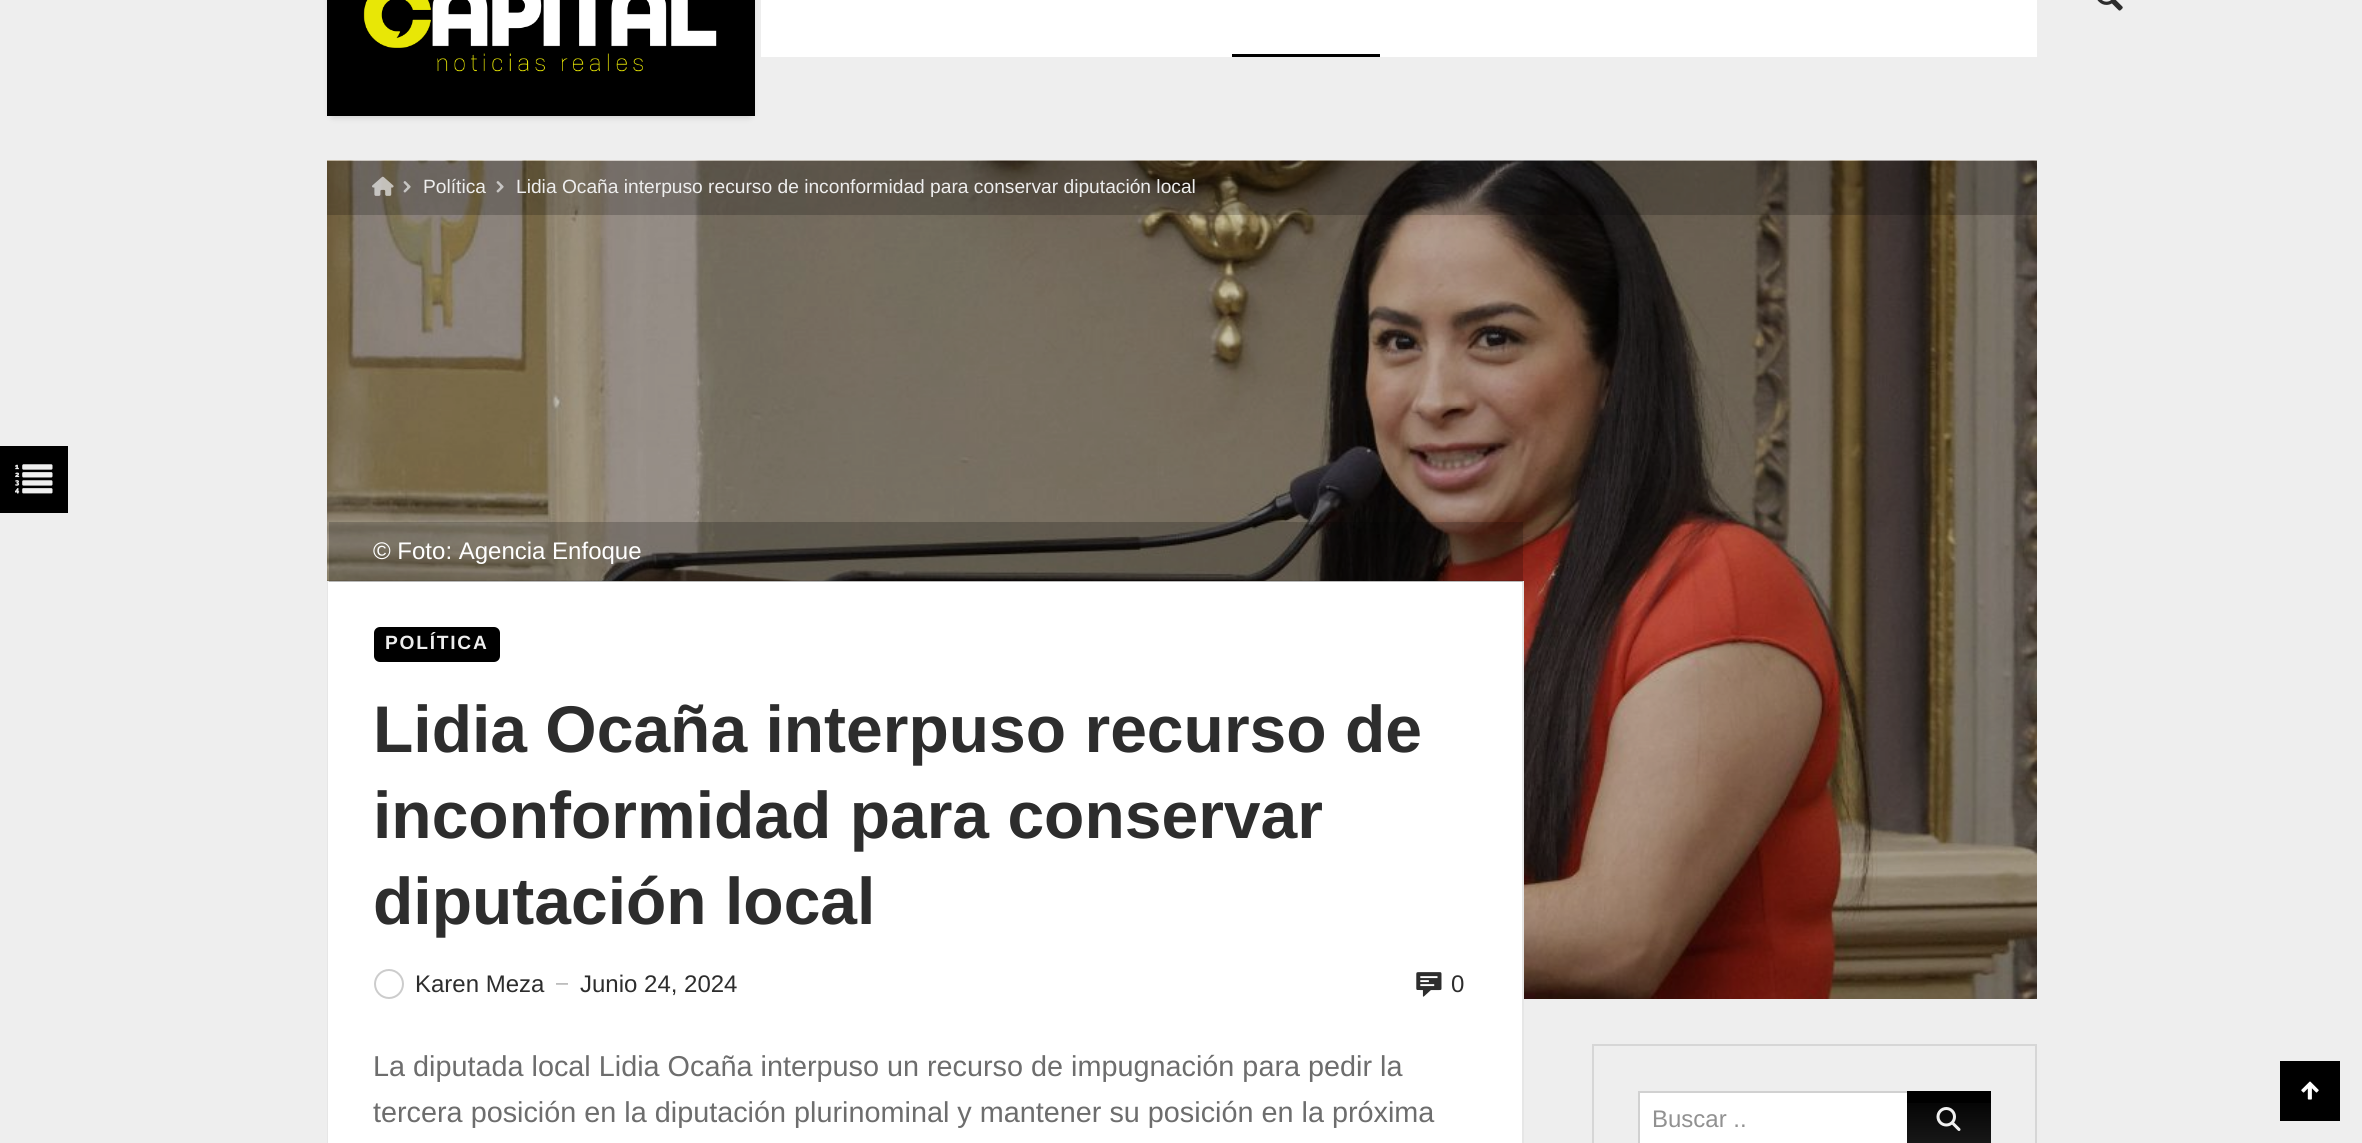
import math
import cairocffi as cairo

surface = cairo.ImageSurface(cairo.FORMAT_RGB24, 2362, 1143)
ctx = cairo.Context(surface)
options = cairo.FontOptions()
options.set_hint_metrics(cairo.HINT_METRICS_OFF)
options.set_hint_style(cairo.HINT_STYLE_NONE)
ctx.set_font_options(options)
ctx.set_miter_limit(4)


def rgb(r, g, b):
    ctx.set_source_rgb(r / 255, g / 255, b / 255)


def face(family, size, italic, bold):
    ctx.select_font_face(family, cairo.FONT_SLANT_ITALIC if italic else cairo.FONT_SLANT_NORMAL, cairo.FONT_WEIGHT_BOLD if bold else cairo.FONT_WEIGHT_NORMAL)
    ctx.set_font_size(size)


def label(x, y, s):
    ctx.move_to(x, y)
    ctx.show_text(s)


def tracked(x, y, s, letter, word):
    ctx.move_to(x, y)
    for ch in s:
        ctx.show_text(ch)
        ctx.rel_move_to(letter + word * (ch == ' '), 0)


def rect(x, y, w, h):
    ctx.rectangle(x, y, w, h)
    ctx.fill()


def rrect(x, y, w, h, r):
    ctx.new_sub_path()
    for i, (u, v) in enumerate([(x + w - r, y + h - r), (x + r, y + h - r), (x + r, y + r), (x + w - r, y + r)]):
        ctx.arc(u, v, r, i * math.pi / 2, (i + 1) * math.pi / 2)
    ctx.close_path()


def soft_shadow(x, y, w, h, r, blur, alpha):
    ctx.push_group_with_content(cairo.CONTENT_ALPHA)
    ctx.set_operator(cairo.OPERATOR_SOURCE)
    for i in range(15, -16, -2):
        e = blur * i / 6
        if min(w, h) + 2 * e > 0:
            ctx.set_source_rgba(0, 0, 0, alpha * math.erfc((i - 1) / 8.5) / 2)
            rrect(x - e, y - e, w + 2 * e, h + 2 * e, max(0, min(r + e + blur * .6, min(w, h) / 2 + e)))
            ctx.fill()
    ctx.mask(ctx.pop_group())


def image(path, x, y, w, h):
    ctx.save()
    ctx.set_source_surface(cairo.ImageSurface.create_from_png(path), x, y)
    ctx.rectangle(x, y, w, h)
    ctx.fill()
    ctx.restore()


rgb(238, 238, 238)
ctx.paint()
rgb(0, 0, 0)
soft_shadow(333, -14, 416, 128, 0, 4.5, 0.3)
rgb(0, 0, 0)
rect(327, 0, 428, 116)
image('image0.png', 363, 0, 354, 72)
rgb(255, 255, 255)
rect(761, 0, 1276, 57)
image('image1.png', 2097, 0, 26, 11)
rgb(0, 0, 0)
rect(1232, 54, 148, 3)
rect(0, 446, 68, 67)
image('image2.png', 15, 464, 38, 30)
image('image3.png', 327, 160, 1710, 839)
ctx.set_source_rgba(0, 0, 0, 0.2)
rect(327, 161, 1710, 54)
image('image4.png', 372, 176, 22, 20)
image('image5.png', 403, 181, 8, 12)
face('Liberation Sans', 19.2, 0, 0)
rgb(238, 238, 238)
label(423, 193, 'Política')
image('image6.png', 496, 181, 8, 12)
label(516, 193, 'Lidia Ocaña interpuso recurso de inconformidad para conservar diputación local')
rgb(255, 255, 255)
rect(327, 581, 1197, 418)
ctx.set_source_rgba(0, 0, 0, 0.1)
ctx.new_path()
ctx.move_to(327, 580)
ctx.line_to(1524, 580)
ctx.line_to(1522, 582)
ctx.line_to(328, 582)
ctx.close_path()
ctx.fill()
ctx.new_path()
ctx.move_to(1524, 580)
ctx.line_to(1524, 999)
ctx.line_to(1522, 999)
ctx.line_to(1522, 582)
ctx.close_path()
ctx.fill()
ctx.new_path()
ctx.move_to(327, 999)
ctx.line_to(327, 580)
ctx.line_to(328, 582)
ctx.line_to(328, 999)
ctx.close_path()
ctx.fill()
ctx.set_source_rgba(0, 0, 0, 0.2)
rect(329, 522, 1194, 60)
face('Liberation Sans', 24, 0, 0)
rgb(255, 255, 255)
label(373, 559, '© Foto: Agencia Enfoque')
rgb(0, 0, 0)
rrect(374, 627, 126, 35, 6)
ctx.fill()
face('Liberation Sans', 19.2, 0, 1)
rgb(238, 238, 238)
tracked(385, 649, 'POLÍTICA', 1.75, 0)
face('Liberation Sans', 66, 0, 1)
rgb(45, 45, 45)
label(373, 752, 'Lidia Ocaña interpuso recurso de')
label(373, 838, 'inconformidad para conservar')
label(373, 924, 'diputación local')
ctx.new_path()
ctx.arc(389, 984, 14, 0, 2 * math.pi)
rgb(204, 204, 204)
ctx.stroke()
face('Liberation Sans', 24, 0, 0)
rgb(45, 45, 45)
label(415, 992, 'Karen Meza')
face('Liberation Sans', 12, 0, 0)
rgb(109, 109, 109)
label(556, 987, '—')
face('Liberation Sans', 24, 0, 0)
rgb(45, 45, 45)
label(580, 992, 'Junio 24, 2024')
image('image7.png', 1416, 972, 26, 25)
label(1451, 992, '0')
rgb(255, 255, 255)
rect(328, 999, 1194, 144)
rgb(230, 230, 230)
ctx.new_path()
ctx.move_to(1524, 999)
ctx.line_to(1524, 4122)
ctx.line_to(1522, 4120)
ctx.line_to(1522, 999)
ctx.close_path()
ctx.fill()
ctx.new_path()
ctx.move_to(327, 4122)
ctx.line_to(327, 999)
ctx.line_to(328, 999)
ctx.line_to(328, 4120)
ctx.close_path()
ctx.fill()
face('Liberation Sans', 28.8, 0, 0)
rgb(109, 109, 109)
label(373, 1076, 'La diputada local Lidia Ocaña interpuso un recurso de impugnación para pedir la')
label(373, 1122, 'tercera posición en la diputación plurinominal y mantener su posición en la próxima')
ctx.rectangle(1593, 1045, 443, 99)
rgb(214, 214, 214)
ctx.stroke()
rgb(255, 255, 255)
rect(1640, 1093, 267, 50)
ctx.rectangle(1639, 1092, 351, 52)
rgb(209, 209, 209)
ctx.stroke()
face('Liberation Sans', 24, 0, 0)
rgb(145, 145, 145)
label(1652, 1127, 'Buscar ..')
rgb(0, 0, 0)
rect(1907, 1091, 84, 52)
image('image8.png', 1936, 1107, 25, 24)
gradient = cairo.LinearGradient(1949, 1091, 1949, 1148)
gradient.add_color_stop_rgba(0, 1, 1, 1, 0)
gradient.add_color_stop_rgba(1, 1, 1, 1, 0.1)
ctx.set_source(gradient)
rect(1907, 1103, 84, 40)
rgb(0, 0, 0)
rect(2280, 1061, 60, 60)
image('image9.png', 2301, 1081, 18, 19)
surface.write_to_png('render.png')
